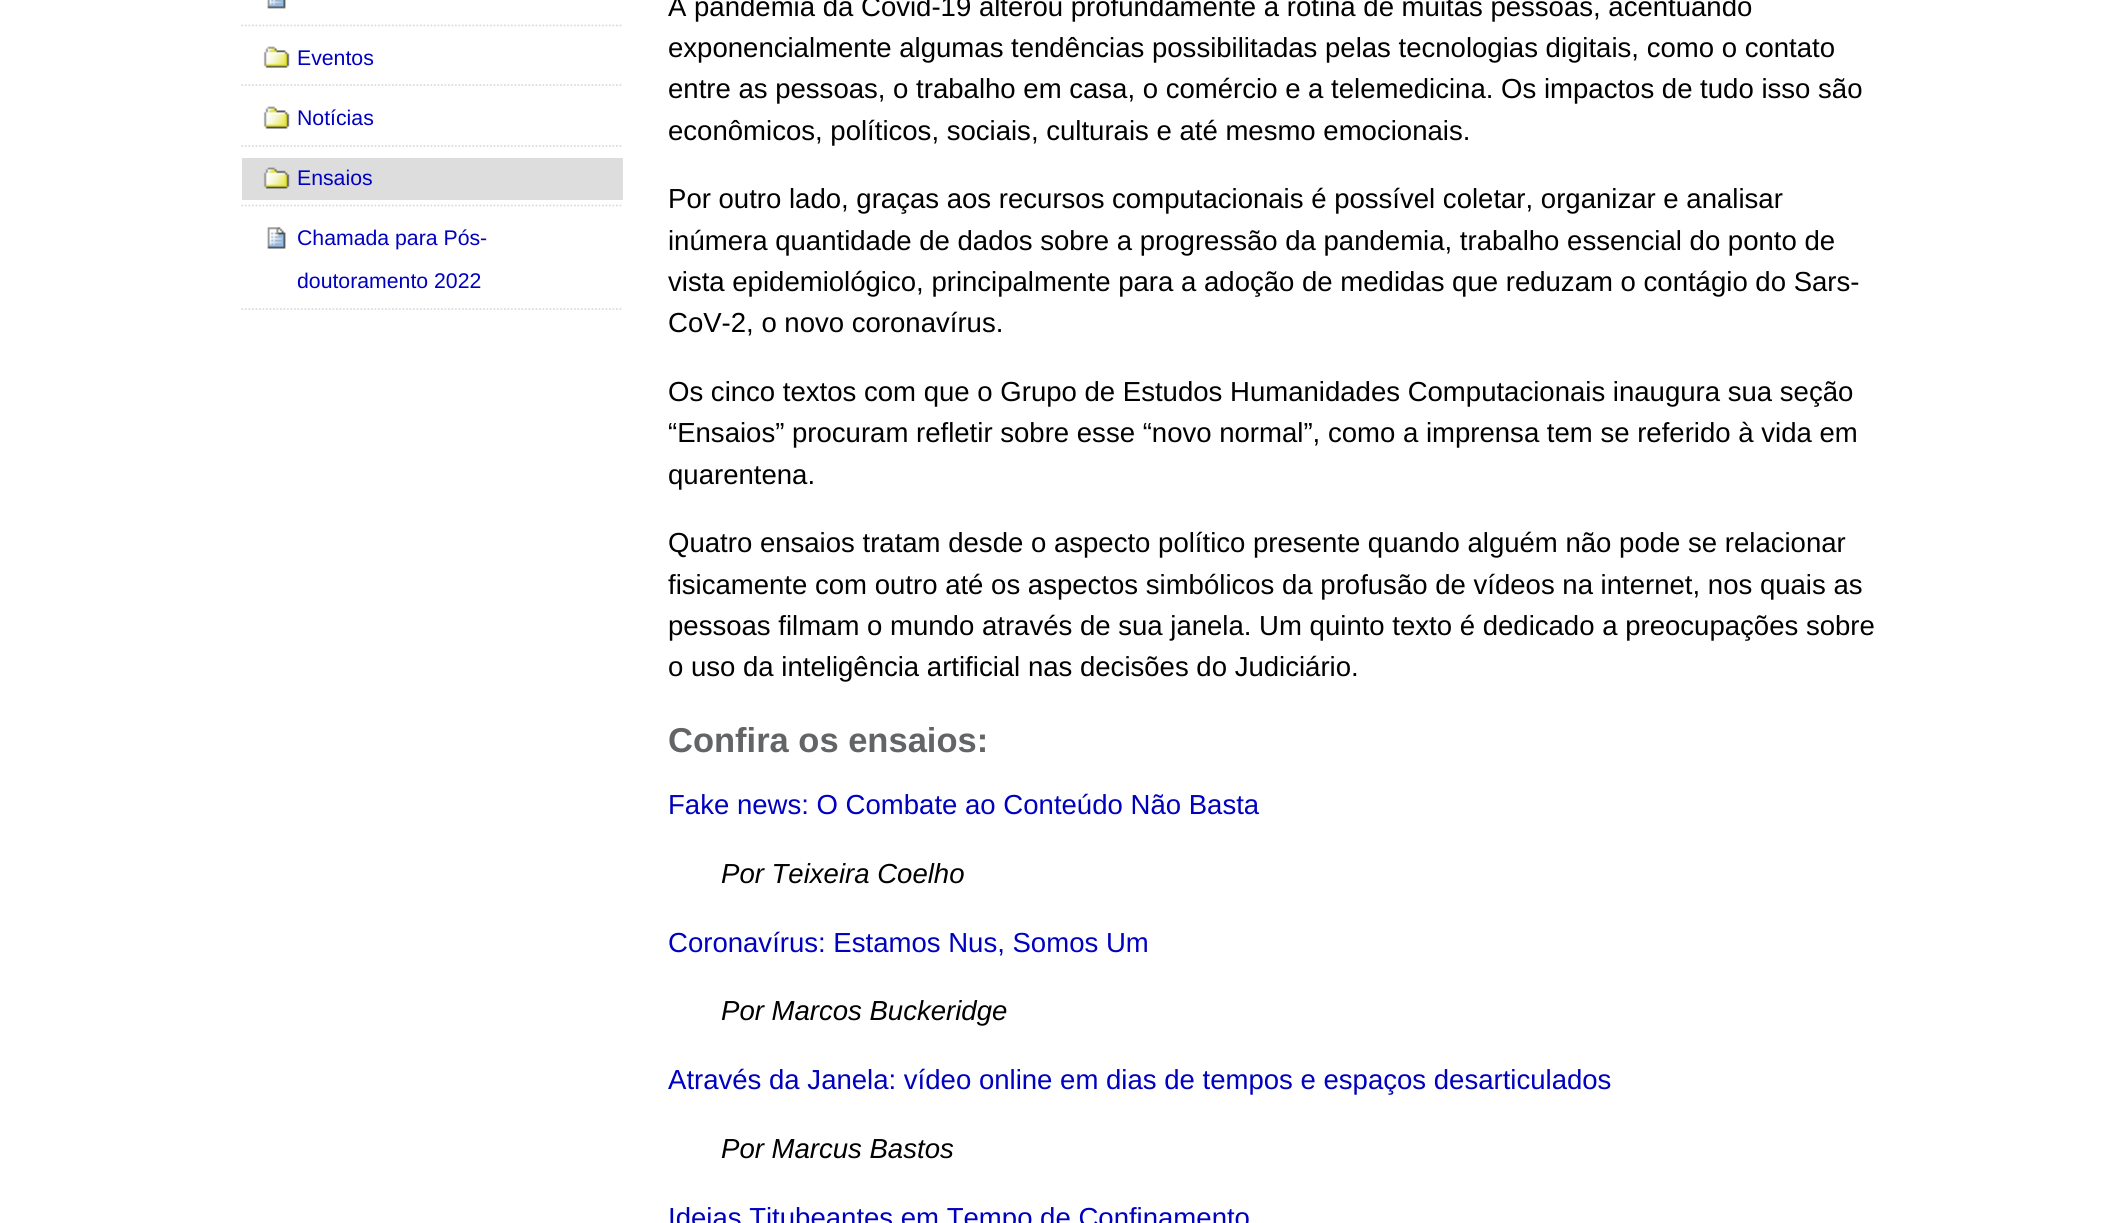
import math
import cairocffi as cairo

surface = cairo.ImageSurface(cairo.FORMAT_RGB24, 2124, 1223)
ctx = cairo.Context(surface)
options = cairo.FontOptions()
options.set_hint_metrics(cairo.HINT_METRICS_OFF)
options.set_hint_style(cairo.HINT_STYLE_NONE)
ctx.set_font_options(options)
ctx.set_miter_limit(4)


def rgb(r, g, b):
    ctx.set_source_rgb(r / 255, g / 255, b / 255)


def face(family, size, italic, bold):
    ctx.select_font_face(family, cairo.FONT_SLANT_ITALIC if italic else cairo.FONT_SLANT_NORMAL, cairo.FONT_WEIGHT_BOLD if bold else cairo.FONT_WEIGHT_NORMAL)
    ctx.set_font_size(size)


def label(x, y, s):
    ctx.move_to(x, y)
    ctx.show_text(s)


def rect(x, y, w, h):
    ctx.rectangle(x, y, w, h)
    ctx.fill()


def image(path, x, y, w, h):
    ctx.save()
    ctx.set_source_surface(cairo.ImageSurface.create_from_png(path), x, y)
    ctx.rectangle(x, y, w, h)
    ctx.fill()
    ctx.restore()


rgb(255, 255, 255)
ctx.paint()
ctx.new_path()
ctx.move_to(241.5, 25.5)
ctx.line_to(623, 25.5)
rgb(221, 221, 221)
ctx.set_line_width(1.8)
ctx.set_dash([1.75, 1.75])
ctx.stroke()
image('image0.png', 267, 0, 19, 9)
ctx.new_path()
ctx.move_to(241.5, 85)
ctx.line_to(623, 85)
ctx.stroke()
image('image1.png', 263, 46, 27, 22)
face('Liberation Sans', 21.25, 0, 0)
rgb(0, 0, 192)
label(297, 65, 'Eventos')
ctx.new_path()
ctx.move_to(241.5, 146)
ctx.line_to(623, 146)
rgb(221, 221, 221)
ctx.stroke()
image('image2.png', 263, 106, 27, 23)
rgb(0, 0, 192)
label(297, 125, 'Notícias')
ctx.new_path()
ctx.move_to(241.5, 205.5)
ctx.line_to(623, 205.5)
rgb(221, 221, 221)
ctx.stroke()
rect(242, 158, 381, 42)
image('image3.png', 263, 167, 27, 22)
rgb(0, 0, 192)
label(297, 185, 'Ensaios')
ctx.new_path()
ctx.move_to(241.5, 309)
ctx.line_to(623, 309)
rgb(221, 221, 221)
ctx.stroke()
image('image4.png', 267, 227, 19, 22)
rgb(0, 0, 192)
label(297, 245, 'Chamada para Pós-')
label(297, 288, 'doutoramento 2022')
face('Liberation Sans', 27.55, 0, 0)
rgb(0, 0, 0)
label(668, 16, 'A pandemia da Covid-19 alterou profundamente a rotina de muitas pessoas, acentuando')
label(668, 57, 'exponencialmente algumas tendências possibilitadas pelas tecnologias digitais, como o contato')
label(668, 98, 'entre as pessoas, o trabalho em casa, o comércio e a telemedicina. Os impactos de tudo isso são')
label(668, 140, 'econômicos, políticos, sociais, culturais e até mesmo emocionais.')
label(668, 208, 'Por outro lado, graças aos recursos computacionais é possível coletar, organizar e analisar')
label(668, 250, 'inúmera quantidade de dados sobre a progressão da pandemia, trabalho essencial do ponto de')
label(668, 291, 'vista epidemiológico, principalmente para a adoção de medidas que reduzam o contágio do Sars-')
label(668, 332, 'CoV-2, o novo coronavírus.')
label(668, 401, 'Os cinco textos com que o Grupo de Estudos Humanidades Computacionais inaugura sua seção')
label(668, 442, '“Ensaios” procuram refletir sobre esse “novo normal”, como a imprensa tem se referido à vida em')
label(668, 484, 'quarentena.')
label(668, 552, 'Quatro ensaios tratam desde o aspecto político presente quando alguém não pode se relacionar')
label(668, 594, 'fisicamente com outro até os aspectos simbólicos da profusão de vídeos na internet, nos quais as')
label(668, 635, 'pessoas filmam o mundo através de sua janela. Um quinto texto é dedicado a preocupações sobre')
label(668, 676, 'o uso da inteligência artificial nas decisões do Judiciário.')
face('Liberation Sans', 34.5, 0, 1)
rgb(99, 100, 102)
label(668, 752, 'Confira os ensaios:')
face('Liberation Sans', 27.55, 0, 0)
rgb(0, 0, 192)
label(668, 814, 'Fake news: O Combate ao Conteúdo Não Basta')
face('Liberation Sans', 27.55, 1, 0)
rgb(0, 0, 0)
label(721, 883, 'Por Teixeira Coelho')
face('Liberation Sans', 27.55, 0, 0)
rgb(0, 0, 192)
label(668, 952, 'Coronavírus: Estamos Nus, Somos Um')
face('Liberation Sans', 27.55, 1, 0)
rgb(0, 0, 0)
label(721, 1020, 'Por Marcos Buckeridge')
face('Liberation Sans', 27.55, 0, 0)
rgb(0, 0, 192)
label(668, 1089, 'Através da Janela: vídeo online em dias de tempos e espaços desarticulados')
face('Liberation Sans', 27.55, 1, 0)
rgb(0, 0, 0)
label(721, 1158, 'Por Marcus Bastos')
face('Liberation Sans', 27.55, 0, 0)
rgb(0, 0, 192)
label(668, 1227, 'Ideias Titubeantes em Tempo de Confinamento')
surface.write_to_png('render.png')
